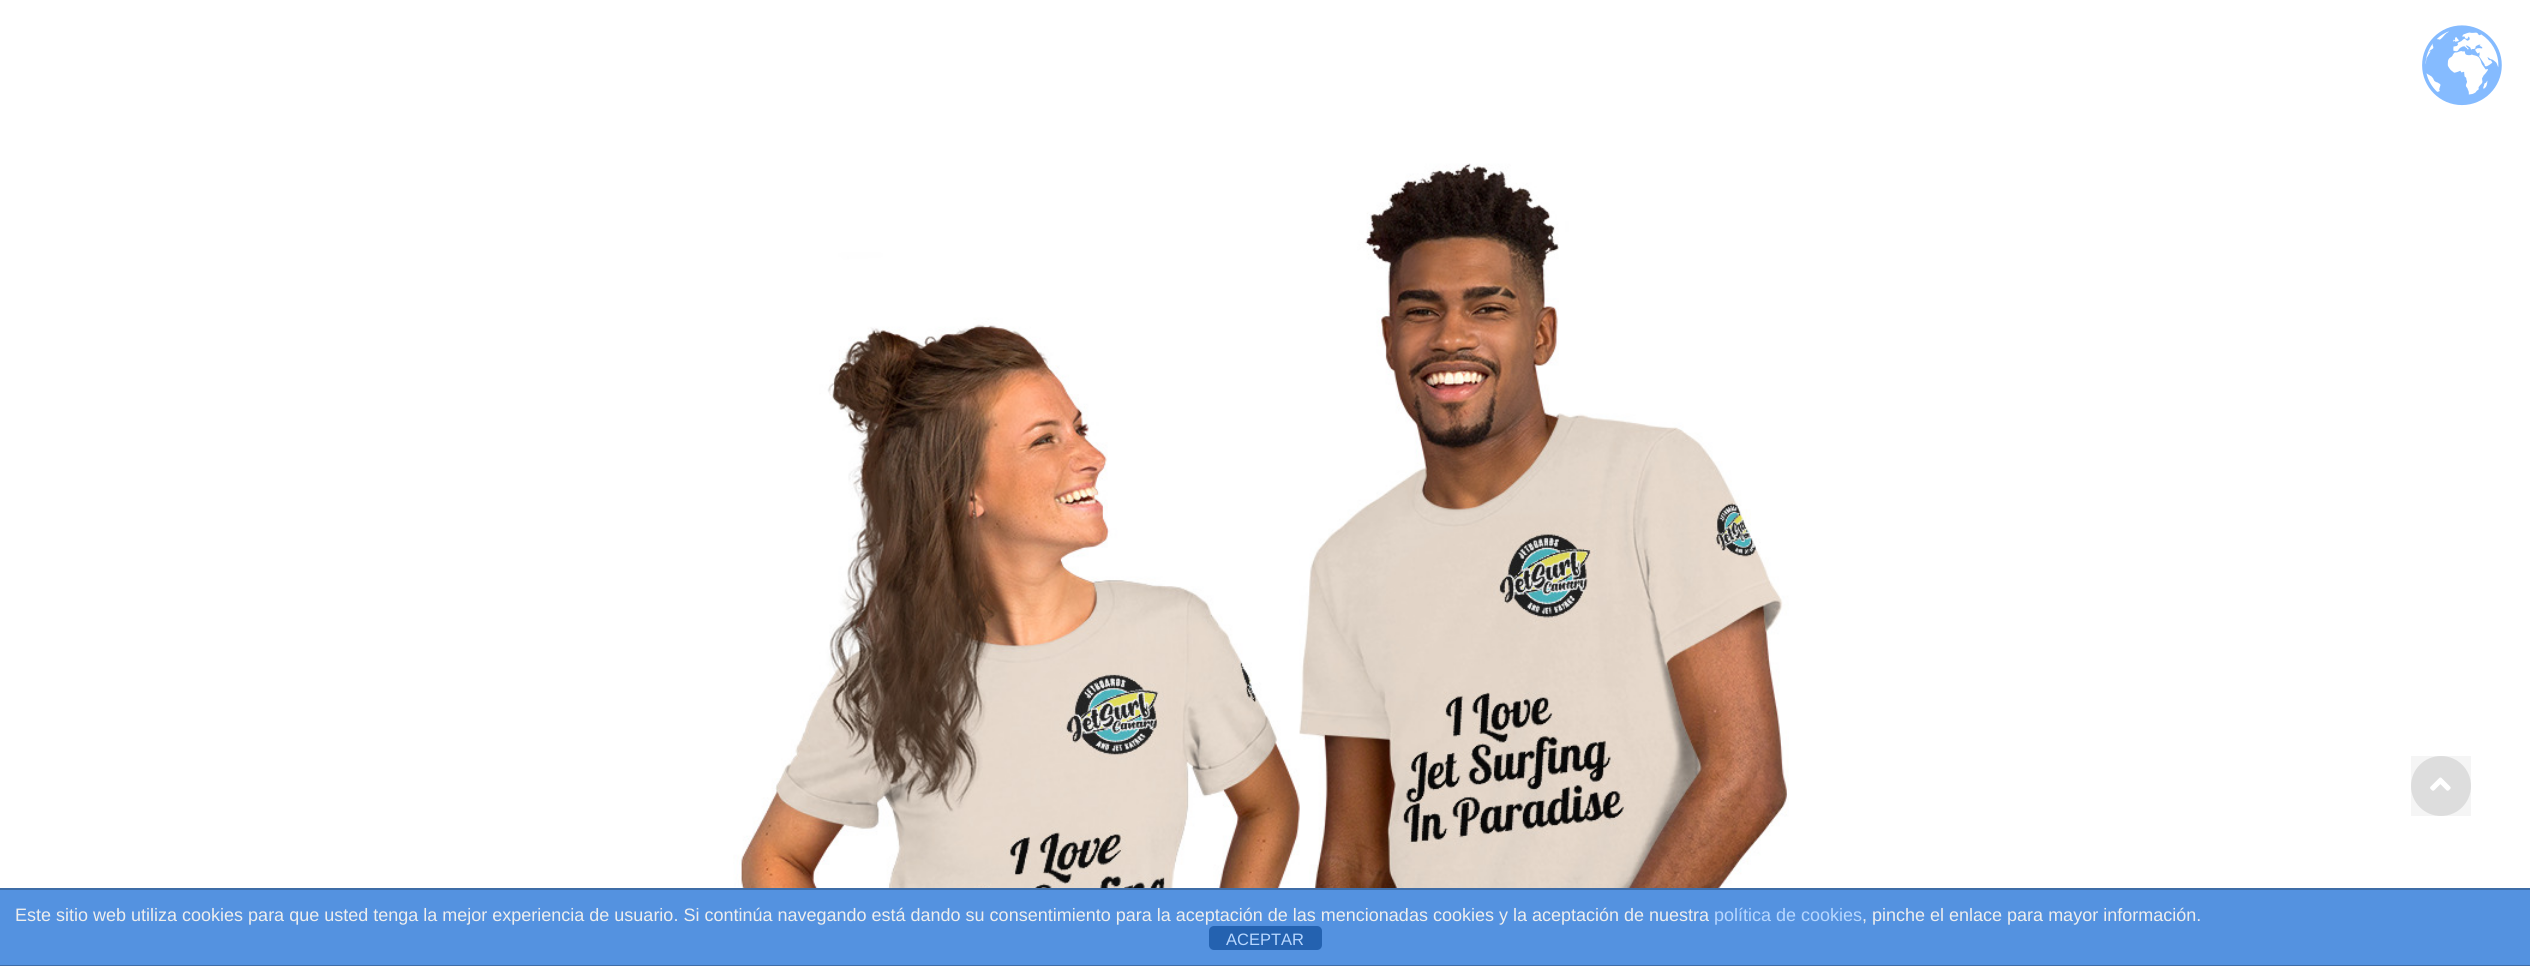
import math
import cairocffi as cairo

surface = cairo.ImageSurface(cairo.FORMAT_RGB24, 2530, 966)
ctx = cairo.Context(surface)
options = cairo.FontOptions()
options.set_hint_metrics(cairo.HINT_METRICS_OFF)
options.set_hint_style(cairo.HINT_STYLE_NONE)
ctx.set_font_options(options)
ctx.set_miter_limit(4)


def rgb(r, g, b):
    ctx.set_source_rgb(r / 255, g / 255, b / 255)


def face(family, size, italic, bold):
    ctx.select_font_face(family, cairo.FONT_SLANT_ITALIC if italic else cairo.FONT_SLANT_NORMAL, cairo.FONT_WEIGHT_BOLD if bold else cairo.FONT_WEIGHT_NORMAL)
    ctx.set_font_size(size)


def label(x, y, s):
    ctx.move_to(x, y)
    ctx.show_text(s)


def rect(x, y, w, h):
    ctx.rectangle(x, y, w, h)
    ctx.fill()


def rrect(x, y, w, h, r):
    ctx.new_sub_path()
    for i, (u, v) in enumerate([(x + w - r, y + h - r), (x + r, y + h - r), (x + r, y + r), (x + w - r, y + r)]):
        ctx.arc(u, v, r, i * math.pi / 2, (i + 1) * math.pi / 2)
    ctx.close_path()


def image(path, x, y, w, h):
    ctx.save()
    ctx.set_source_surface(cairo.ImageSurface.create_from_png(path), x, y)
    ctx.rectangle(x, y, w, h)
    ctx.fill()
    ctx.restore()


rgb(255, 255, 255)
ctx.paint()
image('image0.png', 2422, 25, 80, 81)
image('image1.png', 733, 163, 1056, 725)
rgb(230, 230, 230)
ctx.arc(2441, 786, 30, 0, 2 * math.pi)
ctx.fill()
ctx.set_source_rgba(0, 0, 0, 0.04)
rect(2411, 756, 60, 60)
image('image2.png', 2430, 777, 21, 14)
rgb(84, 146, 224)
rect(0, 890, 2530, 75)
rgb(63, 109, 167)
rect(0, 888, 2530, 2)
rect(0, 965, 2530, 1)
face('Liberation Sans', 18, 0, 0)
rgb(238, 238, 238)
label(15, 921, 'Este sitio web utiliza cookies para que usted tenga la mejor experiencia de usuario. Si continúa navegando está dando su consentimiento para la aceptación de las mencionadas cookies y la aceptación de nuestra')
rgb(183, 215, 255)
label(1714, 921, 'política de cookies')
rgb(238, 238, 238)
label(1862, 921, ', pinche el enlace para mayor información.')
rgb(36, 98, 176)
rrect(1209, 926, 113, 24, 5)
ctx.fill()
face('Liberation Sans', 16.5, 0, 0)
rgb(183, 215, 255)
label(1226, 945, 'ACEPTAR')
surface.write_to_png('render.png')
